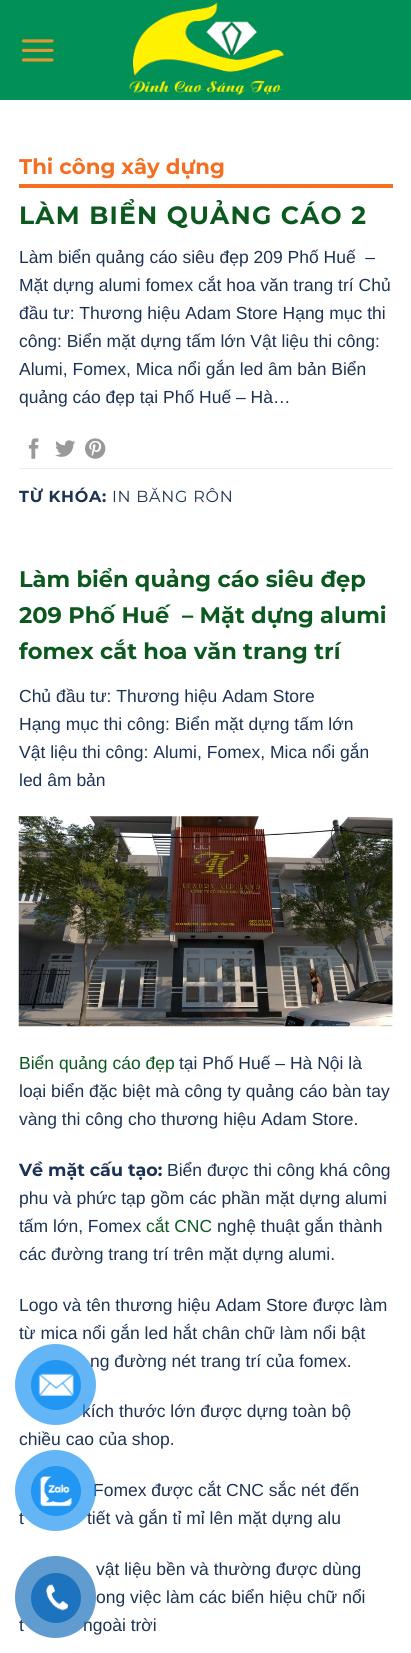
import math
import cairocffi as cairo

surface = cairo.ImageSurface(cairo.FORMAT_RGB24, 411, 1653)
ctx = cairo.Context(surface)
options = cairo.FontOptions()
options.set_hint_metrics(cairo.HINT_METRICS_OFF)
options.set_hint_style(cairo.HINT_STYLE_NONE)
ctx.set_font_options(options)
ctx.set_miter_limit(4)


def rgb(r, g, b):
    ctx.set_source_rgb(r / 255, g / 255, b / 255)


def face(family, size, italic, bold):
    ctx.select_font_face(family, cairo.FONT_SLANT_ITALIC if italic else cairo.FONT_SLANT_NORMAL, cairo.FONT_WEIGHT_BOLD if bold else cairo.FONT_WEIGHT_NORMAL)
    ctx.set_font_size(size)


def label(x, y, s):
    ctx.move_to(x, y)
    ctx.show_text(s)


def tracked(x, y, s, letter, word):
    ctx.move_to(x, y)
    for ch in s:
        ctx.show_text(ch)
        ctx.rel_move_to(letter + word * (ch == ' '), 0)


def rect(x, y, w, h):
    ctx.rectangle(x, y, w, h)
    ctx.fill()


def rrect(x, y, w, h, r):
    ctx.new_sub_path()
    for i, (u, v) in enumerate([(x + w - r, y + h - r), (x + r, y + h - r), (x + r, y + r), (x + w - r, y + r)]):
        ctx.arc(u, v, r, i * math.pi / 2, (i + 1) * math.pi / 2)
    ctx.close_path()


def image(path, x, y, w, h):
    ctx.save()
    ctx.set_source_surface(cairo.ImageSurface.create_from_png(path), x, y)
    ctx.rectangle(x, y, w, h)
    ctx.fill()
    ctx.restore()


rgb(255, 255, 255)
ctx.paint()
rgb(1, 145, 86)
rect(0, 0, 411, 100)
image('image0.png', 21, 39, 33, 23)
image('image1.png', 129, 2, 156, 93)
rgb(243, 111, 33)
rect(19, 184, 374, 4)
face('Montserrat', 21.25, 0, 1)
label(19, 174, 'Thi công xây dựng')
face('Montserrat', 25, 0, 1)
rgb(12, 89, 31)
tracked(19, 224, 'LÀM BIỂN QUẢNG CÁO 2', 1.25, 0)
face('Liberation Sans', 17.5, 0, 0)
rgb(28, 50, 84)
label(19, 263, 'Làm biển quảng cáo siêu đẹp 209 Phố Huế  –')
label(19, 291, 'Mặt dựng alumi fomex cắt hoa văn trang trí Chủ')
label(19, 319, 'đầu tư: Thương hiệu Adam Store Hạng mục thi')
label(19, 347, 'công: Biển mặt dựng tấm lớn Vật liệu thi công:')
label(19, 375, 'Alumi, Fomex, Mica nổi gắn led âm bản Biển')
label(19, 403, 'quảng cáo đẹp tại Phố Huế – Hà…')
image('image2.png', 28, 438, 11, 21)
image('image3.png', 55, 440, 21, 17)
image('image4.png', 85, 438, 21, 21)
rgb(236, 236, 236)
rect(19, 468, 374, 1)
face('Montserrat', 16, 0, 1)
rgb(28, 50, 84)
tracked(19, 502, 'TỪ KHÓA:', 0.75, 0)
face('Montserrat', 16, 0, 0)
tracked(112, 502, 'IN BĂNG RÔN', 0.75, 0)
face('Montserrat', 22.5, 0, 1)
rgb(12, 89, 31)
label(19, 587, 'Làm biển quảng cáo siêu đẹp')
label(19, 623, '209 Phố Huế  – Mặt dựng alumi')
label(19, 659, 'fomex cắt hoa văn trang trí')
face('Liberation Sans', 17.5, 0, 0)
rgb(28, 50, 84)
label(19, 702, 'Chủ đầu tư: Thương hiệu Adam Store')
label(19, 730, 'Hạng mục thi công: Biển mặt dựng tấm lớn')
label(19, 758, 'Vật liệu thi công: Alumi, Fomex, Mica nổi gắn')
label(19, 786, 'led âm bản')
image('image5.png', 18, 816, 375, 211)
rgb(12, 89, 31)
label(19, 1069, 'Biển quảng cáo đẹp')
rgb(28, 50, 84)
label(179, 1069, 'tại Phố Huế – Hà Nội là')
label(19, 1097, 'loại biển đặc biệt mà công ty quảng cáo bàn tay')
label(19, 1125, 'vàng thi công cho thương hiệu Adam Store.')
face('Montserrat', 17.5, 0, 1)
label(19, 1176, 'Về mặt cấu tạo:')
face('Liberation Sans', 17.5, 0, 0)
label(167, 1176, 'Biển được thi công khá công')
label(19, 1204, 'phu và phức tạp gồm các phần mặt dựng alumi')
label(19, 1232, 'tấm lớn, Fomex')
rgb(12, 89, 31)
label(146, 1232, 'cắt CNC')
rgb(28, 50, 84)
label(217, 1232, 'nghệ thuật gắn thành')
label(19, 1260, 'các đường trang trí trên mặt dựng alumi.')
label(19, 1311, 'Logo và tên thương hiệu Adam Store được làm')
label(19, 1339, 'từ mica nổi gắn led hắt chân chữ làm nổi bật')
label(90, 1367, 'ng đường nét trang trí của fomex.')
label(82, 1417, 'kích thước lớn được dựng toàn bộ')
label(19, 1445, 'chiều cao của shop.')
label(93, 1496, 'Fomex được cắt CNC sắc nét đến')
label(19, 1524, 't')
label(87, 1524, 'tiết và gắn tỉ mỉ lên mặt dựng alu')
label(96, 1575, 'vật liệu bền và thường được dùng')
label(96, 1603, 'ong việc làm các biển hiệu chữ nổi')
label(19, 1631, 't')
label(83, 1631, 'ngoài trời')
ctx.set_source_rgba(0.129, 0.588, 0.953, 0.7)
ctx.new_path()
ctx.arc(55.5, 1384.5, 40.5, 0, 2 * math.pi)
ctx.fill()
rgb(33, 150, 243)
ctx.arc(56, 1385, 25, 0, 2 * math.pi)
ctx.fill()
image('image6.png', 38, 1373, 36, 23)
ctx.set_source_rgba(0.129, 0.588, 0.953, 0.7)
ctx.arc(55.5, 1490.5, 40.5, 0, 2 * math.pi)
ctx.fill()
rgb(33, 150, 243)
ctx.arc(56, 1491, 25, 0, 2 * math.pi)
ctx.fill()
image('image7.png', 39, 1476, 33, 31)
ctx.set_source_rgba(0.118, 0.451, 0.745, 0.7)
rrect(15, 1556, 81, 82, 40.5)
ctx.fill()
rgb(30, 115, 190)
ctx.arc(56, 1598, 25, 0, 2 * math.pi)
ctx.fill()
image('image8.png', 46, 1584, 22, 27)
surface.write_to_png('render.png')
